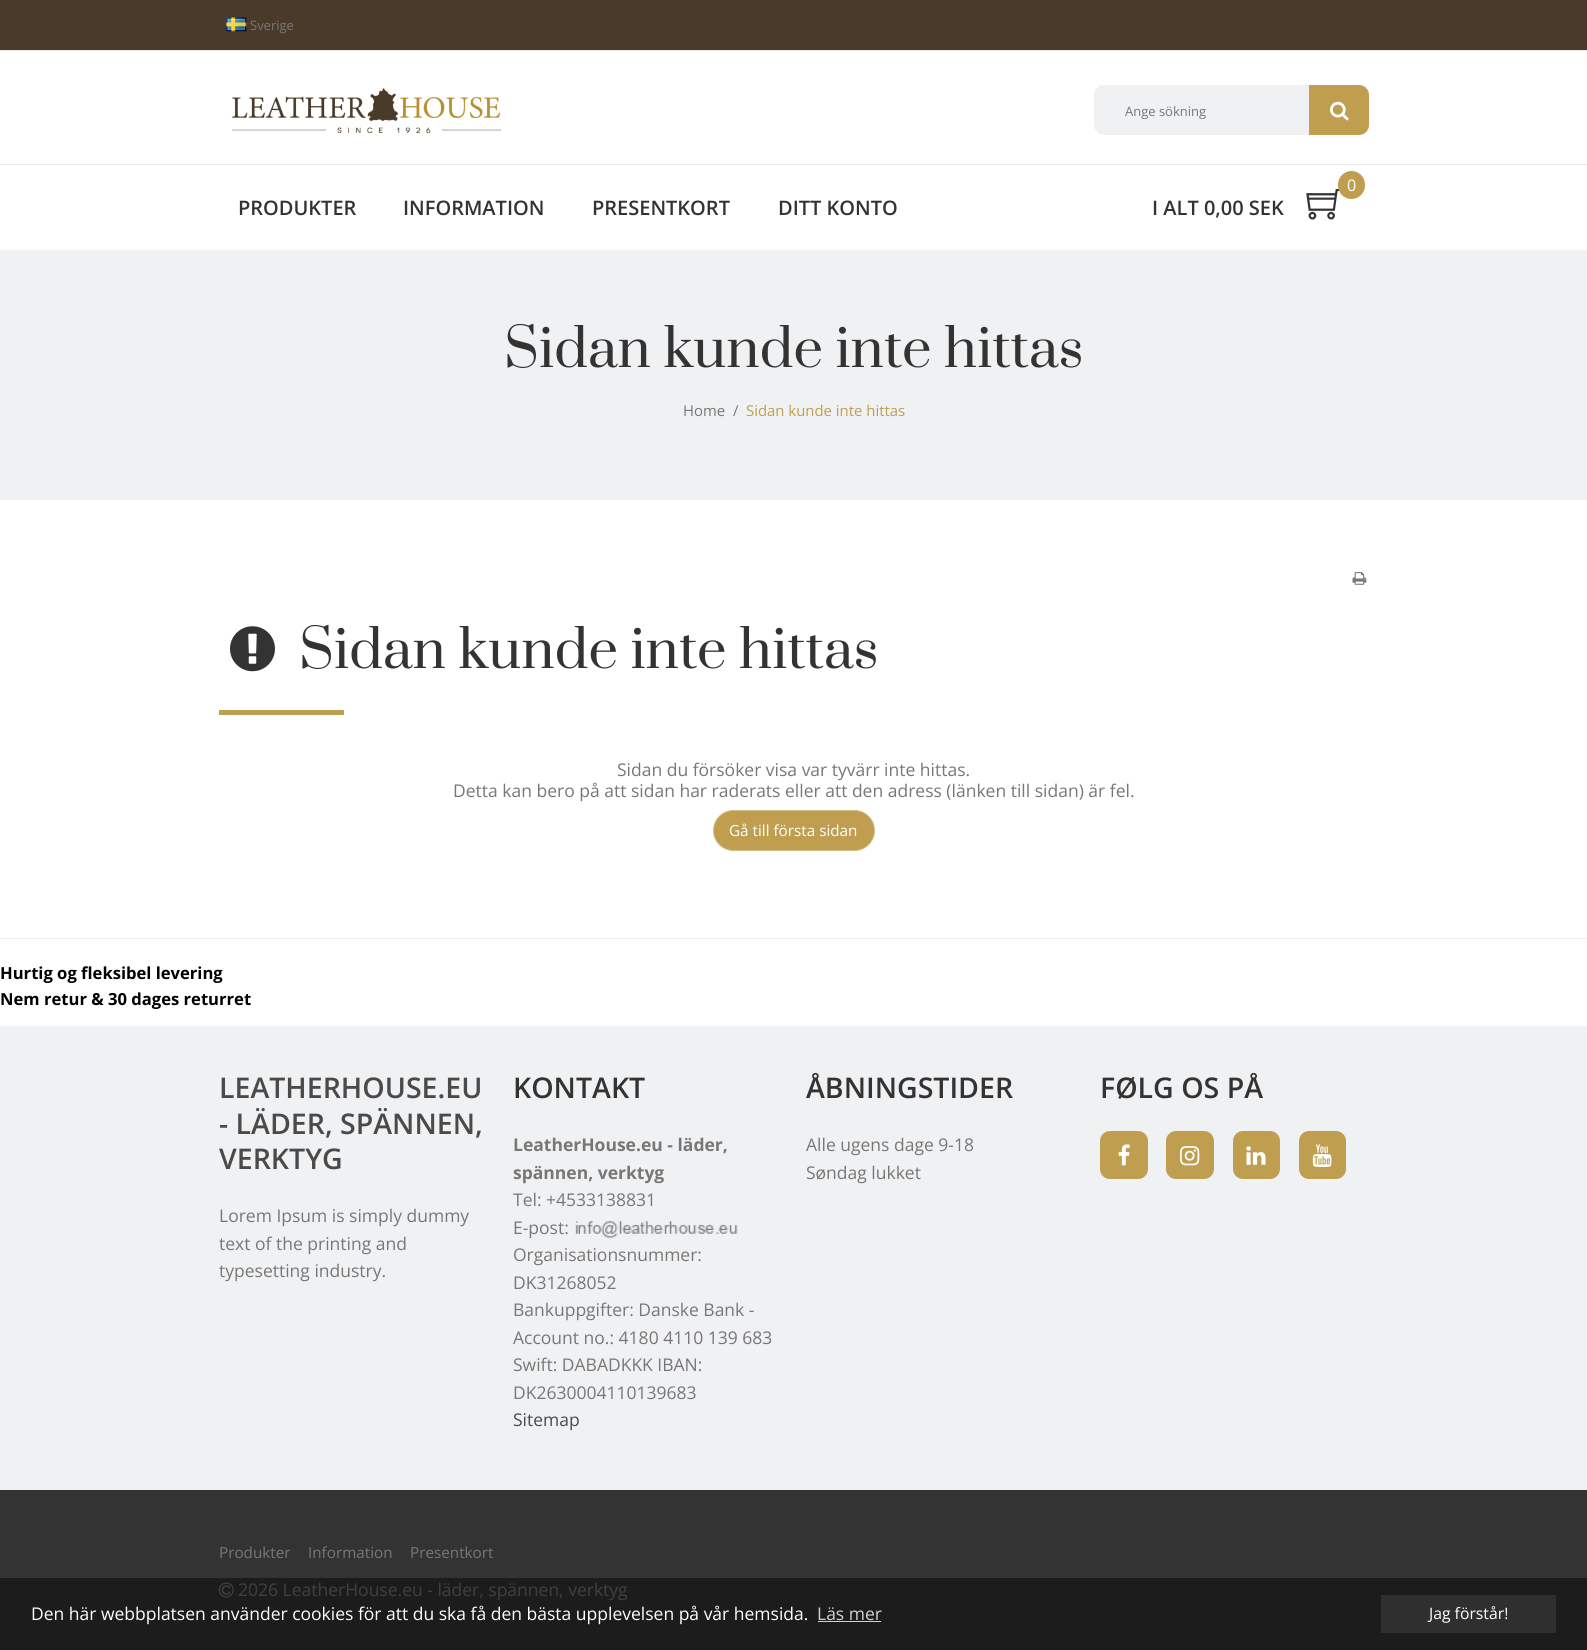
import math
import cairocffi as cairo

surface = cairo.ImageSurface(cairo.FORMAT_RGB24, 1587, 1650)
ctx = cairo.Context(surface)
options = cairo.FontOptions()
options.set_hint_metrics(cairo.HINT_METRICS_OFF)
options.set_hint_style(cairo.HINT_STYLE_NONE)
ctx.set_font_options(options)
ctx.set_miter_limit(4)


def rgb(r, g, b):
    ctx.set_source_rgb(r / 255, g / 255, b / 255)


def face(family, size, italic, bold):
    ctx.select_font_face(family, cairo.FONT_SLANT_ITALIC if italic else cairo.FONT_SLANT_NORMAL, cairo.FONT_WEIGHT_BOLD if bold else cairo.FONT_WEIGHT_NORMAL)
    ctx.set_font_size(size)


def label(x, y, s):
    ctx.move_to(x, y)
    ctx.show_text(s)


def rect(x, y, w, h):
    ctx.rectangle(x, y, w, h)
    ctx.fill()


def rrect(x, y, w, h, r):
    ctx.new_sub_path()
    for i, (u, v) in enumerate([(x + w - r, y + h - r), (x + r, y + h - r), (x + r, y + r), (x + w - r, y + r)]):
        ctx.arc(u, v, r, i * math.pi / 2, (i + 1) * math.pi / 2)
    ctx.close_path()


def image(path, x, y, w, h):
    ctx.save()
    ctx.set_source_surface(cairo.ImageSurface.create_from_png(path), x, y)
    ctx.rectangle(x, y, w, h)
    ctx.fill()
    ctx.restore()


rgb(255, 255, 255)
ctx.paint()
rgb(74, 58, 41)
rect(0, 0, 1587, 50)
image('image0.png', 226, 17, 21, 15)
face('Open Sans', 13, 0, 0)
rgb(119, 119, 119)
label(250, 30, 'Sverige')
rgb(234, 234, 234)
rect(0, 50, 1587, 1)
rect(0, 164, 1587, 1)
image('image1.png', 231, 88, 270, 45)
rgb(240, 241, 243)
ctx.new_path()
ctx.move_to(1104, 85)
ctx.line_to(1310, 85)
ctx.line_to(1310, 135)
ctx.line_to(1104, 135)
ctx.curve_to(1098.5, 135, 1094, 130.5, 1094, 125)
ctx.line_to(1094, 95)
ctx.curve_to(1094, 89.5, 1098.5, 85, 1104, 85)
ctx.close_path()
ctx.fill()
ctx.save()
ctx.rectangle(1125, 101, 179, 18)
ctx.clip()
rgb(119, 119, 119)
label(1125, 116, 'Ange sökning')
ctx.restore()
rgb(191, 158, 80)
ctx.new_path()
ctx.move_to(1309, 85)
ctx.line_to(1359, 85)
ctx.curve_to(1364.5, 85, 1369, 89.5, 1369, 95)
ctx.line_to(1369, 125)
ctx.curve_to(1369, 130.5, 1364.5, 135, 1359, 135)
ctx.line_to(1309, 135)
ctx.close_path()
ctx.fill()
image('image2.png', 1330, 101, 19, 20)
face('Open Sans SemiBold', 20, 0, 0)
rgb(51, 51, 51)
label(238, 215, 'PRODUKTER')
label(403, 215, 'INFORMATION')
label(592, 215, 'PRESENTKORT')
label(778, 215, 'DITT KONTO')
image('image3.png', 1306, 189, 34, 31)
rgb(191, 158, 80)
rrect(1338, 171, 27, 28, 13.5)
ctx.fill()
face('Open Sans', 16, 0, 0)
rgb(255, 255, 255)
label(1347, 191, '0')
face('Open Sans SemiBold', 20, 0, 0)
rgb(51, 51, 51)
label(1152, 215, 'I ALT 0,00 SEK')
rgb(240, 241, 243)
rect(0, 250, 1587, 250)
face('Prata', 52.5, 0, 0)
rgb(51, 51, 51)
label(504, 367, 'Sidan kunde inte hittas')
face('Open Sans', 14.9, 0, 0)
rgb(119, 119, 119)
label(683, 416, 'Home')
label(733, 416, '/')
rgb(191, 158, 80)
label(746, 416, 'Sidan kunde inte hittas')
image('image4.png', 1352, 572, 15, 13)
image('image5.png', 230, 626, 45, 46)
face('Prata', 52.5, 0, 0)
rgb(51, 51, 51)
label(299, 668, 'Sidan kunde inte hittas')
rgb(191, 158, 80)
rect(219, 710, 125, 5)
face('Open Sans', 17.5, 0, 0)
rgb(119, 119, 119)
label(617, 776, 'Sidan du försöker visa var tyvärr inte hittas.')
label(453, 797, 'Detta kan bero på att sidan har raderats eller att den adress (länken till sidan) är fel.')
rgb(191, 158, 80)
rrect(713.5, 810.5, 161, 40, 20)
ctx.fill_preserve()
rgb(211, 189, 136)
ctx.set_line_width(1)
ctx.stroke()
face('Open Sans', 15.25, 0, 0)
rgb(255, 255, 255)
label(729, 836, 'Gå till första sidan')
rgb(238, 238, 238)
rect(0, 938, 1587, 1)
face('Open Sans', 16.6, 0, 1)
rgb(0, 0, 0)
label(0, 979, 'Hurtig og fleksibel levering')
label(0, 1005, 'Nem retur & 30 dages returret')
rgb(240, 241, 243)
rect(0, 1026, 1587, 464)
face('Open Sans SemiBold', 28.5, 0, 0)
rgb(74, 74, 74)
label(219, 1098, 'LEATHERHOUSE.EU')
label(219, 1134, '- LÄDER, SPÄNNEN,')
label(219, 1169, 'VERKTYG')
face('Open Sans', 17.5, 0, 0)
rgb(119, 119, 119)
label(219, 1222, 'Lorem Ipsum is simply dummy')
label(219, 1250, 'text of the printing and')
label(219, 1277, 'typesetting industry.')
face('Open Sans SemiBold', 28.5, 0, 0)
rgb(51, 51, 51)
label(513, 1098, 'KONTAKT')
face('Open Sans', 17.5, 0, 1)
rgb(119, 119, 119)
label(513, 1151, 'LeatherHouse.eu - läder,')
label(513, 1179, 'spännen, verktyg')
face('Open Sans', 17.5, 0, 0)
label(513, 1206, 'Tel: +4533138831')
label(513, 1234, 'E-post:')
image('image6.png', 575, 1221, 163, 17)
label(513, 1261, 'Organisationsnummer:')
label(513, 1289, 'DK31268052')
label(513, 1316, 'Bankuppgifter: Danske Bank -')
label(513, 1344, 'Account no.: 4180 4110 139 683')
label(513, 1371, 'Swift: DABADKKK IBAN:')
label(513, 1399, 'DK2630004110139683')
rgb(74, 74, 74)
label(513, 1426, 'Sitemap')
face('Open Sans SemiBold', 28.5, 0, 0)
rgb(51, 51, 51)
label(806, 1098, 'ÅBNINGSTIDER')
face('Open Sans', 17.5, 0, 0)
rgb(119, 119, 119)
label(806, 1151, 'Alle ugens dage 9-18')
label(806, 1179, 'Søndag lukket')
face('Open Sans SemiBold', 28.5, 0, 0)
rgb(51, 51, 51)
label(1100, 1098, 'FØLG OS PÅ')
rgb(191, 158, 80)
rrect(1100, 1131, 48, 48, 10)
ctx.fill()
image('image7.png', 1118, 1144, 12, 22)
rrect(1166, 1131, 48, 48, 10)
ctx.fill()
image('image8.png', 1180, 1146, 20, 20)
rrect(1233, 1131, 47, 48, 10)
ctx.fill()
image('image9.png', 1246, 1146, 20, 19)
rrect(1299, 1131, 47, 48, 10)
ctx.fill()
image('image10.png', 1312, 1144, 20, 23)
rgb(51, 51, 51)
rect(0, 1490, 1587, 88)
rgb(28, 28, 28)
rect(0, 1578, 1587, 72)
face('Open Sans', 15.25, 0, 0)
rgb(119, 119, 119)
label(219, 1558, 'Produkter')
label(308, 1558, 'Information')
label(410, 1558, 'Presentkort')
image('image11.png', 218, 1582, 16, 16)
face('Open Sans', 17.5, 0, 0)
rgb(64, 64, 64)
label(238, 1596, '2026 LeatherHouse.eu - läder, spännen, verktyg')
rgb(255, 255, 255)
label(31, 1620, 'Den här webbplatsen använder cookies för att du ska få den bästa upplevelsen på vår hemsida.')
rgb(210, 210, 210)
label(817, 1620, 'Läs mer')
rect(818, 1621, 63, 1)
rgb(47, 47, 47)
rect(1381, 1595, 175, 38)
face('Open Sans', 15.75, 0, 0)
rgb(255, 255, 255)
label(1429, 1619, 'Jag förstår!')
surface.write_to_png('render.png')
